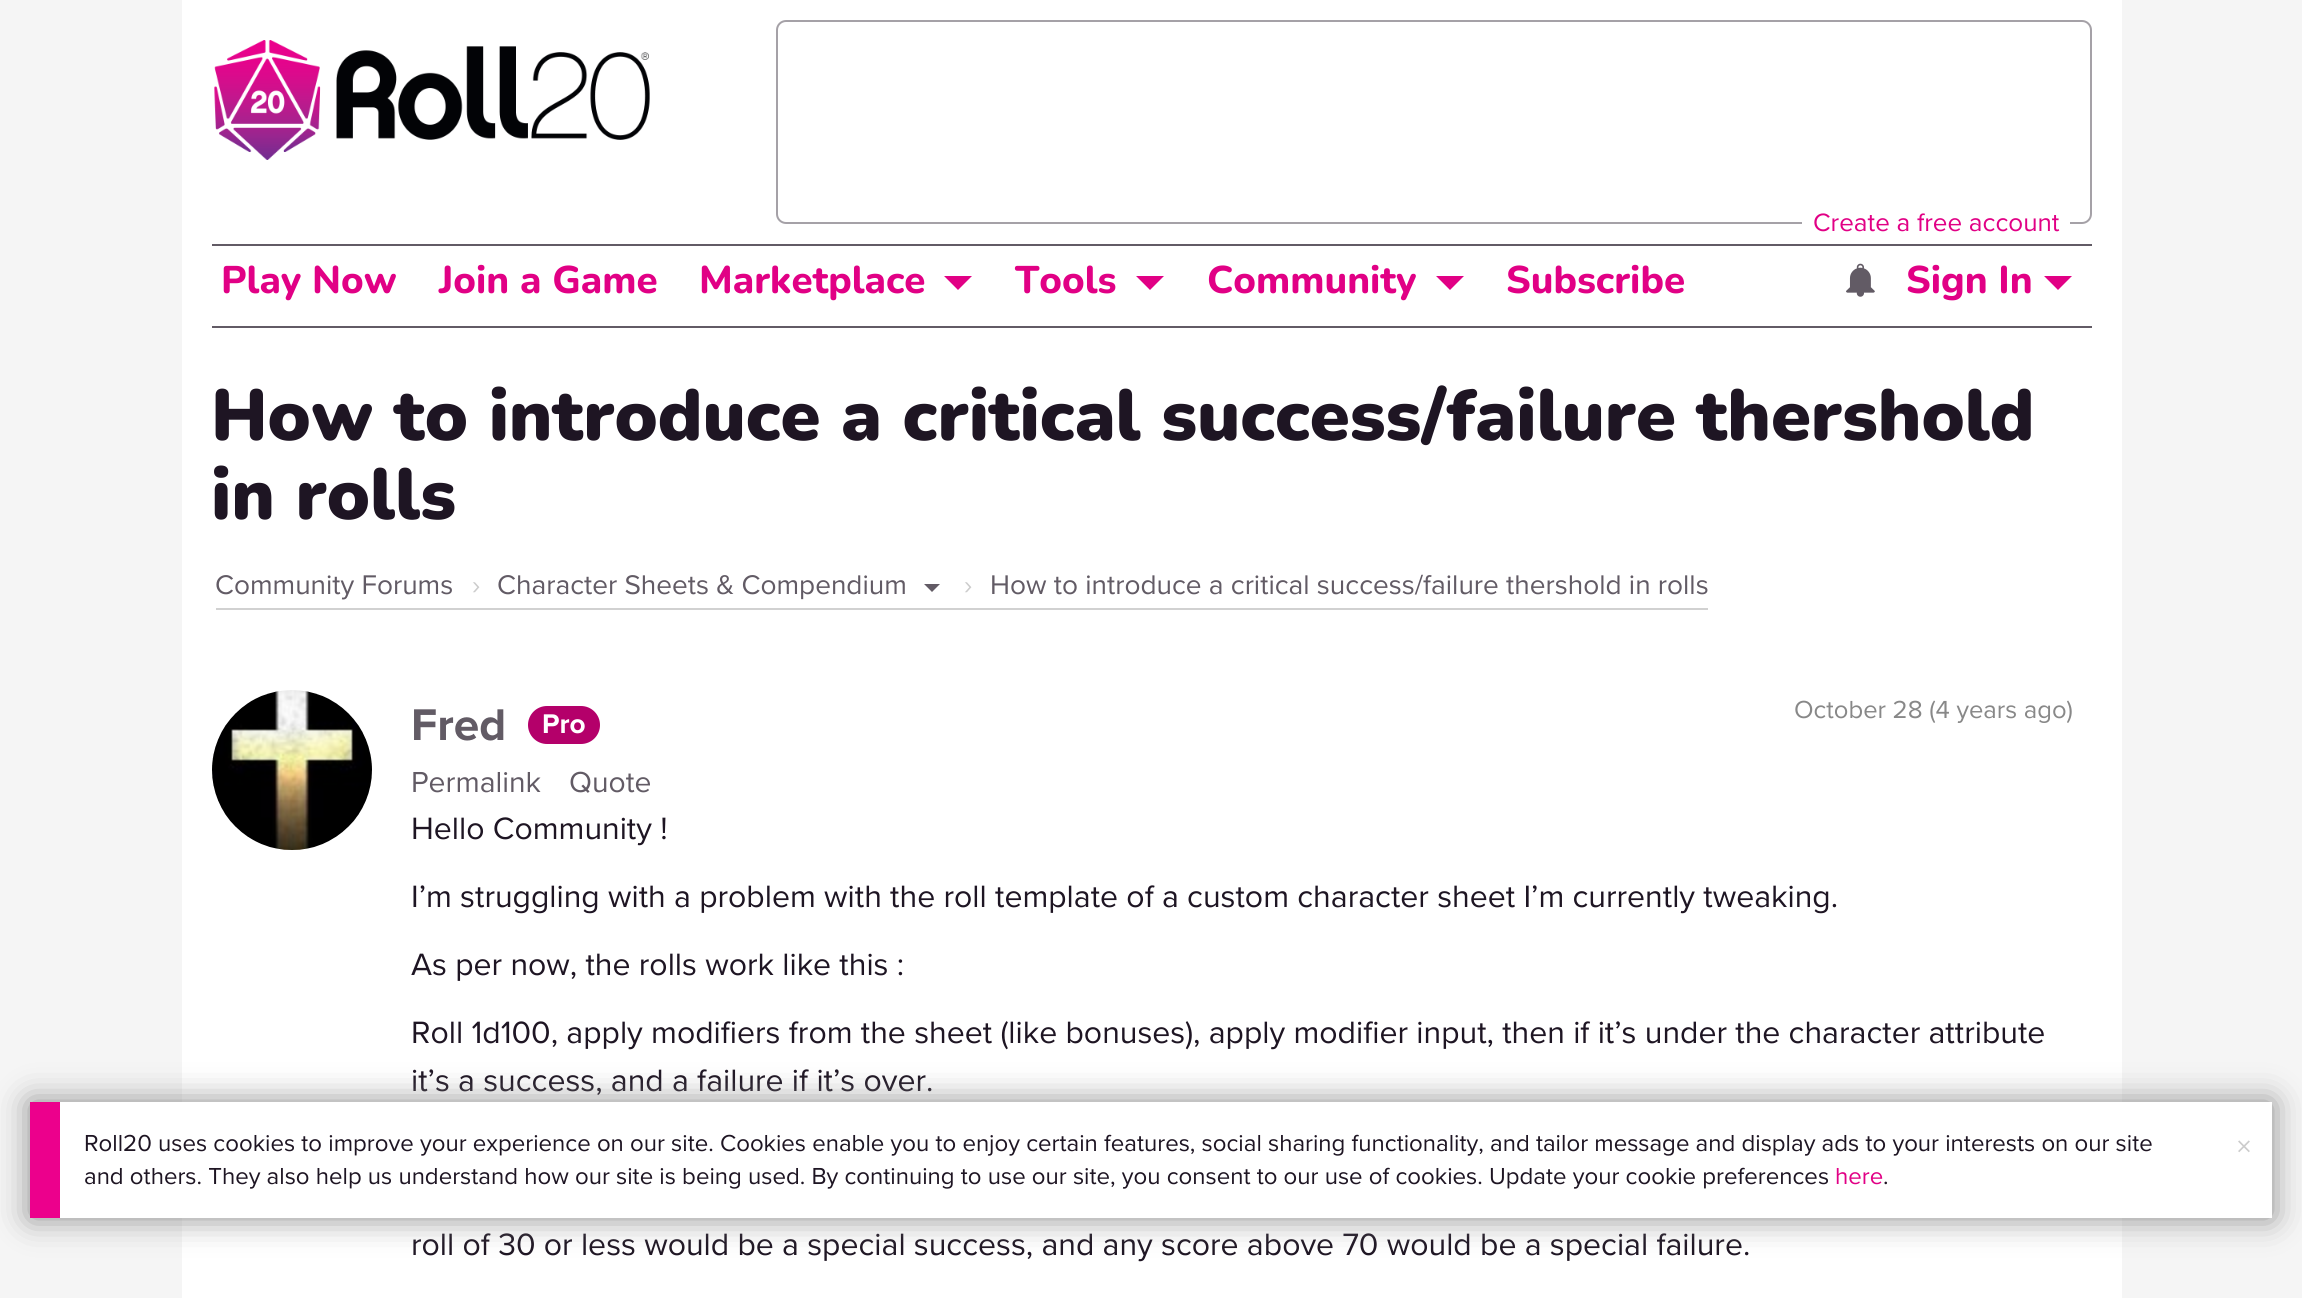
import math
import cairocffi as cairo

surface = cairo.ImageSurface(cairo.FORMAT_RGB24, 2302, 1298)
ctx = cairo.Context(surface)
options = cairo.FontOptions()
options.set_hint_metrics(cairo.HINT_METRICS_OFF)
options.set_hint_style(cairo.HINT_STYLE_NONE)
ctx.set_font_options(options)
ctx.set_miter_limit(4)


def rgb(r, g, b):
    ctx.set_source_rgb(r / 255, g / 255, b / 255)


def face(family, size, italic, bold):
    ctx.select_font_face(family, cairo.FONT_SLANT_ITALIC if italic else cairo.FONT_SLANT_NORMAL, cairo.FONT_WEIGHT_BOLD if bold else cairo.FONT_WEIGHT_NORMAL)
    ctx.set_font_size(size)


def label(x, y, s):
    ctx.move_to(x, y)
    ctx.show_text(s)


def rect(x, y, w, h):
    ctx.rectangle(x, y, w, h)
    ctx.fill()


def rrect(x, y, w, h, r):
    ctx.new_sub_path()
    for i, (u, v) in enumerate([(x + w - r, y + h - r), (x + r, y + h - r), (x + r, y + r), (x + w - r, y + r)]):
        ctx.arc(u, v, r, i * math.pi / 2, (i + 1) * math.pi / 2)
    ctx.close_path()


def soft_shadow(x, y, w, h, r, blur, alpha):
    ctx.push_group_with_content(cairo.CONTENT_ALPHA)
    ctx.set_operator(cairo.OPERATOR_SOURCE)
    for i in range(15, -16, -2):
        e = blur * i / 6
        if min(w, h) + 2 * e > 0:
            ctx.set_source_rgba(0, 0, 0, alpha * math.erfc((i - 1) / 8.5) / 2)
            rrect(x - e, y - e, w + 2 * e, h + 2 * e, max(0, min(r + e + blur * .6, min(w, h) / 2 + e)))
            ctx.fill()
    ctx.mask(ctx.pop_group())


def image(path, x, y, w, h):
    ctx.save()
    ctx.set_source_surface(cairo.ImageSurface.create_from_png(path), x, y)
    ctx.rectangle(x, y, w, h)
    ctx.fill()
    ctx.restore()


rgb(245, 245, 245)
ctx.paint()
rgb(255, 255, 255)
rect(182, 0, 1940, 1298)
image('image0.png', 214, 40, 436, 120)
rrect(777, 21, 1314, 202, 9)
rgb(165, 161, 167)
ctx.stroke()
rgb(255, 255, 255)
rect(1802, 222, 268, 2)
face('Proxima Nova', 26, 0, 0)
rgb(225, 0, 133)
label(1813, 231, 'Create a free account')
rgb(98, 91, 101)
rect(212, 244, 1880, 2)
rect(212, 326, 1880, 2)
face('Nunito ExtraBold', 38.5, 0, 0)
rgb(225, 0, 133)
label(221, 293, 'Play Now')
label(439, 293, 'Join a Game')
label(699, 293, 'Marketplace')
ctx.new_path()
ctx.move_to(944, 276)
ctx.line_to(972, 276)
ctx.line_to(958, 290)
ctx.close_path()
ctx.fill()
label(1015, 293, 'Tools')
ctx.new_path()
ctx.move_to(1136, 276)
ctx.line_to(1164, 276)
ctx.line_to(1150, 290)
ctx.close_path()
ctx.fill()
label(1207, 293, 'Community')
ctx.new_path()
ctx.move_to(1436, 276)
ctx.line_to(1464, 276)
ctx.line_to(1450, 290)
ctx.close_path()
ctx.fill()
label(1506, 293, 'Subscribe')
face('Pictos', 38.5, 0, 0)
rgb(98, 91, 101)
label(1845, 291, ':')
face('Nunito ExtraBold', 38.5, 0, 0)
rgb(225, 0, 133)
label(1906, 293, 'Sign In')
ctx.new_path()
ctx.move_to(2044, 276)
ctx.line_to(2072, 276)
ctx.line_to(2058, 290)
ctx.close_path()
ctx.fill()
face('Nunito Black', 72, 0, 0)
rgb(30, 21, 35)
label(211, 440, 'How to introduce a critical success/failure thershold')
label(211, 519, 'in rolls')
rgb(209, 209, 209)
rect(216, 608, 1492, 2)
face('Proxima Nova', 28, 0, 0)
rgb(98, 91, 101)
label(215, 594, 'Community Forums')
rgb(204, 204, 204)
label(472, 594, '›')
rgb(98, 91, 101)
label(497, 594, 'Character Sheets & Compendium')
ctx.new_path()
ctx.move_to(924, 584)
ctx.line_to(940, 584)
ctx.line_to(932, 592)
ctx.close_path()
ctx.fill()
rgb(204, 204, 204)
label(964, 594, '›')
rgb(98, 91, 101)
label(990, 594, 'How to introduce a critical success/failure thershold in rolls')
image('image1.png', 212, 690, 160, 160)
face('Proxima Nova', 46, 0, 1)
label(411, 740, 'Fred')
rgb(180, 0, 106)
rrect(528, 706, 72, 38, 19)
ctx.fill()
face('Proxima Nova', 28, 0, 1)
rgb(255, 255, 255)
label(542, 733, 'Pro')
face('Proxima Nova', 25.6, 0, 0)
rgb(136, 136, 136)
label(1794, 718, 'October 28 (4 years ago)')
face('Proxima Nova', 30, 0, 0)
rgb(98, 91, 101)
label(411, 792, 'Permalink')
label(569, 792, 'Quote')
face('Proxima Nova', 32, 0, 0)
rgb(30, 21, 35)
label(411, 839, 'Hello Community !')
label(411, 907, 'I’m struggling with a problem with the roll template of a custom character sheet I’m currently tweaking.')
label(411, 975, 'As per now, the rolls work like this :')
label(411, 1043, 'Roll 1d100, apply modifiers from the sheet (like bonuses), apply modifier input, then if it’s under the character attribute')
label(411, 1091, 'it’s a success, and a failure if it’s over.')
label(411, 1255, 'roll of 30 or less would be a special success, and any score above 70 would be a special failure.')
rgb(136, 136, 136)
soft_shadow(30, 1102, 2242, 116, 0, 16, 1)
rgb(255, 255, 255)
rect(60, 1102, 2212, 116)
rgb(236, 0, 140)
rect(30, 1102, 30, 116)
face('Proxima Nova', 24, 0, 0)
rgb(30, 21, 35)
label(84, 1151, 'Roll20 uses cookies to improve your experience on our site. Cookies enable you to enjoy certain features, social sharing functionality, and tailor message and display ads to your interests on our site')
label(84, 1184, 'and others. They also help us understand how our site is being used. By continuing to use our site, you consent to our use of cookies. Update your cookie preferences')
rgb(225, 0, 133)
label(1835, 1184, 'here')
rgb(30, 21, 35)
label(1883, 1184, '.')
face('Proxima Nova', 32, 0, 0)
rgb(204, 204, 204)
label(2236, 1157, '×')
surface.write_to_png('render.png')
